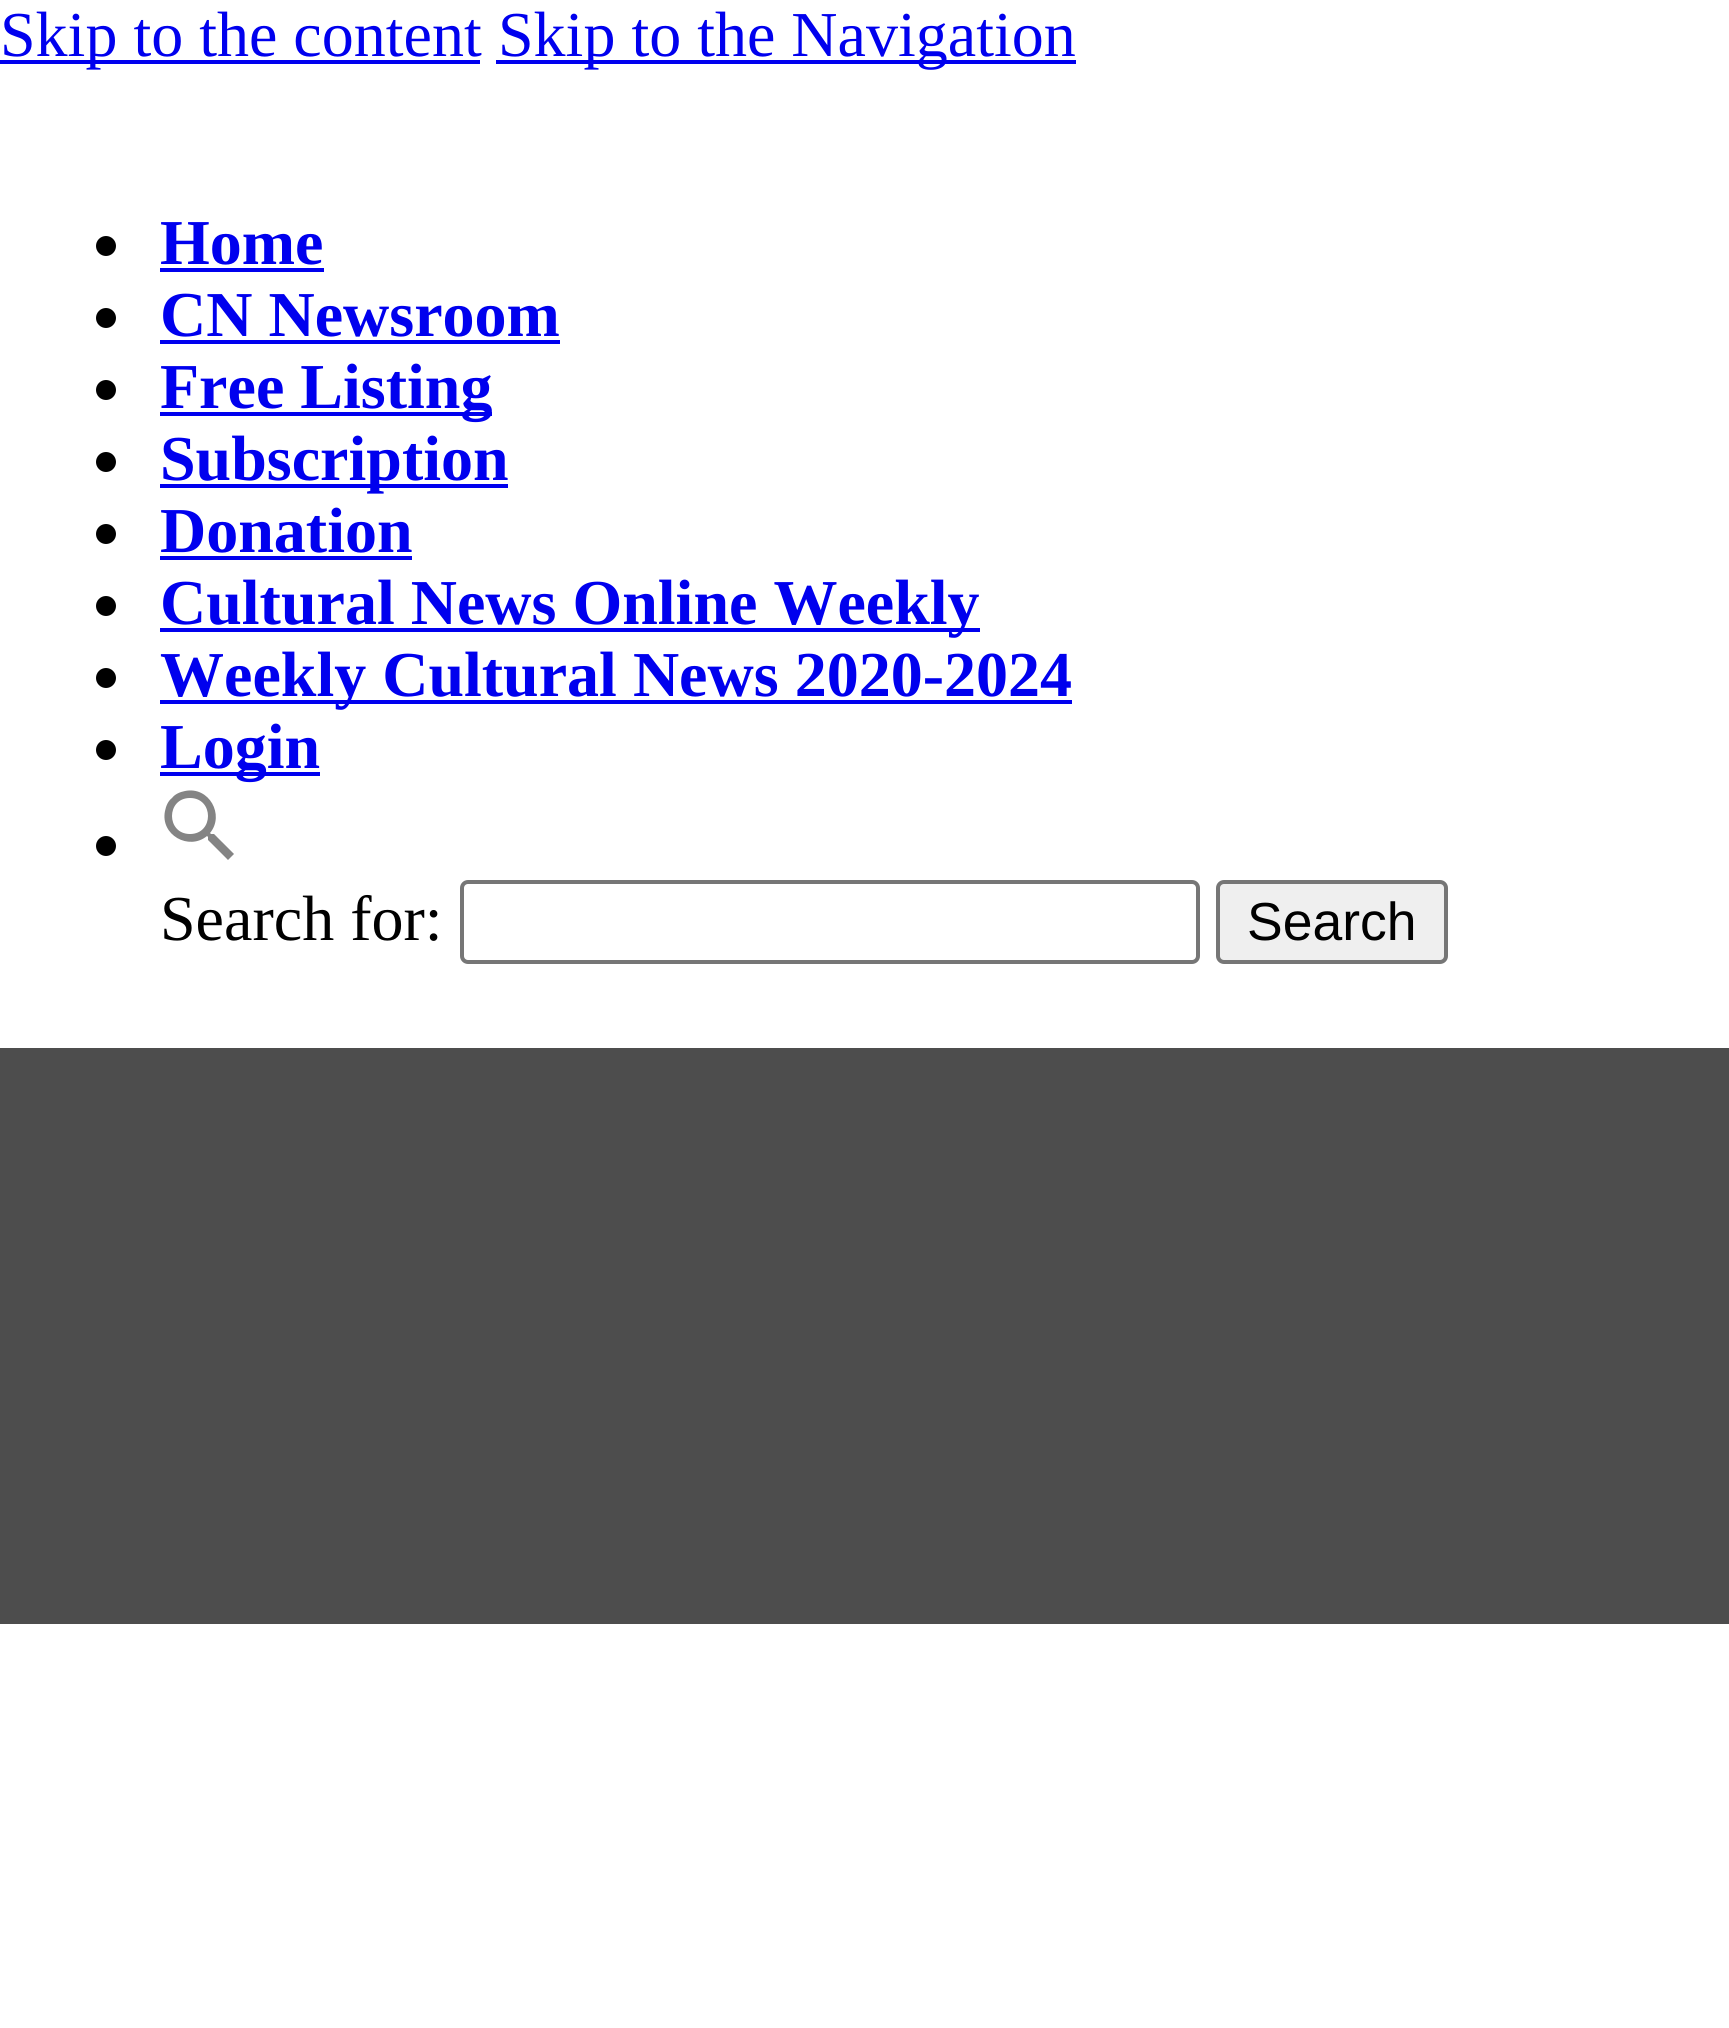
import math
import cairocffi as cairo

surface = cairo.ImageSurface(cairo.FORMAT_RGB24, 1729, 2028)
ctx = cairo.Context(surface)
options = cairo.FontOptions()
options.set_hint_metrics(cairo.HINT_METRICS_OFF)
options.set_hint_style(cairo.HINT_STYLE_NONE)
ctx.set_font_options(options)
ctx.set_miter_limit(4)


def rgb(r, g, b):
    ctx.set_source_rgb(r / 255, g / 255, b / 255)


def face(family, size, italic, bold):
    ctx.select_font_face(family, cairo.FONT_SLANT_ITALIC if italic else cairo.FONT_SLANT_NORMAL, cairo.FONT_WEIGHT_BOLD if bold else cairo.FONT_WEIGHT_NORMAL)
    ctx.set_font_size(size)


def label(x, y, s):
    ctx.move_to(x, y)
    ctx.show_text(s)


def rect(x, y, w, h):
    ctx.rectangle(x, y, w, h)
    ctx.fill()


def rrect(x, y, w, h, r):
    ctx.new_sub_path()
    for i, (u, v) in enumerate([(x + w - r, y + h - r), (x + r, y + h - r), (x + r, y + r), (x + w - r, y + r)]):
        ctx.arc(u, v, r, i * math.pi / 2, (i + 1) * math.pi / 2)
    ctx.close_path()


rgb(255, 255, 255)
ctx.paint()
rgb(0, 0, 238)
rect(0, 60, 480, 4)
face('Liberation Serif', 64, 0, 0)
label(0, 56, 'Skip to the content')
rect(496, 60, 580, 4)
label(498, 56, 'Skip to the Navigation')
rgb(0, 0, 0)
ctx.new_path()
ctx.arc(106, 246, 10, 0, 2 * math.pi)
ctx.fill()
face('Liberation Serif', 64, 0, 1)
rgb(0, 0, 238)
label(160, 264, 'Home')
rect(160, 268, 164, 4)
rgb(0, 0, 0)
ctx.new_path()
ctx.arc(106, 318, 10, 0, 2 * math.pi)
ctx.fill()
rgb(0, 0, 238)
label(160, 336, 'CN Newsroom')
rect(160, 340, 400, 4)
rgb(0, 0, 0)
ctx.new_path()
ctx.arc(106, 390, 10, 0, 2 * math.pi)
ctx.fill()
rgb(0, 0, 238)
rect(160, 412, 332, 4)
label(160, 408, 'Free Listing')
rgb(0, 0, 0)
ctx.new_path()
ctx.arc(106, 462, 10, 0, 2 * math.pi)
ctx.fill()
rgb(0, 0, 238)
rect(160, 484, 348, 4)
label(160, 480, 'Subscription')
rgb(0, 0, 0)
ctx.new_path()
ctx.arc(106, 534, 10, 0, 2 * math.pi)
ctx.fill()
rgb(0, 0, 238)
label(160, 552, 'Donation')
rect(160, 556, 252, 4)
rgb(0, 0, 0)
ctx.new_path()
ctx.arc(106, 606, 10, 0, 2 * math.pi)
ctx.fill()
rgb(0, 0, 238)
rect(160, 628, 820, 4)
label(160, 624, 'Cultural News Online Weekly')
rgb(0, 0, 0)
ctx.new_path()
ctx.arc(106, 678, 10, 0, 2 * math.pi)
ctx.fill()
rgb(0, 0, 238)
rect(160, 700, 912, 4)
label(160, 696, 'Weekly Cultural News 2020-2024')
rgb(0, 0, 0)
ctx.new_path()
ctx.arc(106, 750, 10, 0, 2 * math.pi)
ctx.fill()
rgb(0, 0, 238)
rect(160, 772, 160, 4)
label(160, 768, 'Login')
rgb(0, 0, 0)
ctx.new_path()
ctx.arc(106, 846, 10, 0, 2 * math.pi)
ctx.fill()
rgb(132, 132, 132)
ctx.new_path()
ctx.move_to(214, 834)
ctx.line_to(211, 834)
ctx.line_to(210, 833)
ctx.curve_to(225, 815, 209, 786, 185, 791)
ctx.curve_to(180, 792, 175, 794, 172, 798)
ctx.curve_to(168, 801, 166, 806, 165, 811)
ctx.curve_to(160, 835, 189, 851, 207, 836)
ctx.line_to(208, 837)
ctx.line_to(208, 840)
ctx.line_to(228, 860)
ctx.line_to(234, 854)
ctx.close_path()
ctx.move_to(190, 834)
ctx.curve_to(166, 834, 166, 798, 190, 798)
ctx.curve_to(214, 798, 214, 834, 190, 834)
ctx.close_path()
ctx.fill()
face('Liberation Serif', 64, 0, 0)
rgb(0, 0, 0)
label(160, 940, 'Search for:')
rrect(462, 882, 736, 80, 6)
rgb(118, 118, 118)
ctx.set_line_width(4)
ctx.stroke()
rgb(239, 239, 239)
rrect(1218, 882, 228, 80, 6)
ctx.fill_preserve()
rgb(118, 118, 118)
ctx.stroke()
face('Liberation Sans', 53.5, 0, 0)
rgb(0, 0, 0)
label(1247, 940, 'Search')
rgb(77, 77, 77)
rect(0, 1048, 1729, 576)
surface.write_to_png('render.png')
